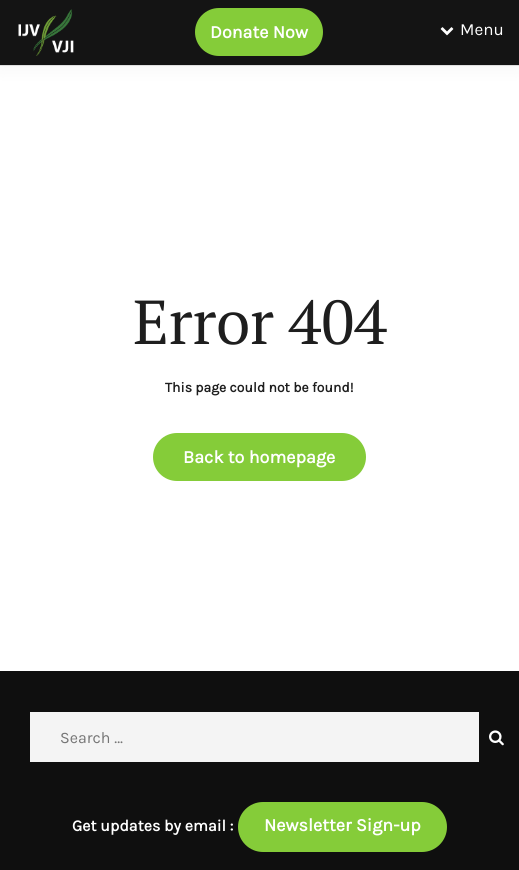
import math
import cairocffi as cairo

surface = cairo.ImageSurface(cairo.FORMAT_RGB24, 519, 870)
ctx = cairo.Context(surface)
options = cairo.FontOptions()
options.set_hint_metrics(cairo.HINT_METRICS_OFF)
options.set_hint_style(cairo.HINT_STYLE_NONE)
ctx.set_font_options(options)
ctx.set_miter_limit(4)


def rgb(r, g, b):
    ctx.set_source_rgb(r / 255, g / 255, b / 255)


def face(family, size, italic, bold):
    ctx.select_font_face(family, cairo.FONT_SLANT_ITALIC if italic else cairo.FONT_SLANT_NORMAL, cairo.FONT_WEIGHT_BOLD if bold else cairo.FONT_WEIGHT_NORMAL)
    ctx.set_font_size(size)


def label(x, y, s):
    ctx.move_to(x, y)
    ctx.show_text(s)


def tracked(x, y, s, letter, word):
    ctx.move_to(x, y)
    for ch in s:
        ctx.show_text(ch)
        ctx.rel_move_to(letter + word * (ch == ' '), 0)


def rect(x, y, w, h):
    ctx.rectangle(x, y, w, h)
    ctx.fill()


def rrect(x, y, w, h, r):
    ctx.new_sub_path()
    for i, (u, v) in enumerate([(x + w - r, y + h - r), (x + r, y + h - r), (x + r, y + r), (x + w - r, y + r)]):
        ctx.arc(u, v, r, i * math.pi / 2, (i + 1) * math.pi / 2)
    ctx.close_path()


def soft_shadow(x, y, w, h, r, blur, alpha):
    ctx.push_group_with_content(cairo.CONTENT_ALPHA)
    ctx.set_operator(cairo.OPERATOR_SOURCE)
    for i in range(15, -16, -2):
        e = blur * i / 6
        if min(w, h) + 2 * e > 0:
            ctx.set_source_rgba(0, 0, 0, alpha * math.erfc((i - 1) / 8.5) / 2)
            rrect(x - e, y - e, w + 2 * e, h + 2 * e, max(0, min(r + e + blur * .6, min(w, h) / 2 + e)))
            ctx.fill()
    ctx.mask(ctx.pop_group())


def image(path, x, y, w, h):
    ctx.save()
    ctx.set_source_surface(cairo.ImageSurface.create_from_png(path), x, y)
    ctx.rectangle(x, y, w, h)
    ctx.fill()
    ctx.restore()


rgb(255, 255, 255)
ctx.paint()
rgb(0, 0, 0)
soft_shadow(0, 0, 519, 66, 0, 10, 0.05)
rgb(223, 223, 223)
rect(0, 65, 519, 1)
rgb(20, 20, 20)
rect(0, 0, 519, 65)
image('image0.png', 18, 9, 56, 47)
rgb(133, 204, 57)
rrect(195, 8, 128, 48, 24)
ctx.fill()
face('Karla', 18, 0, 1)
rgb(255, 255, 255)
label(210, 38, 'Donate Now')
image('image1.png', 440, 27, 14, 9)
face('Karla', 17, 0, 0)
label(460, 35, 'Menu')
face('PT Serif', 62, 0, 0)
rgb(30, 30, 30)
tracked(133, 344, 'Error 404', -0.25, 0)
face('Karla', 14, 0, 1)
label(165, 392, 'This page could not be found!')
rgb(133, 204, 57)
rrect(153, 433, 213, 48, 24)
ctx.fill()
face('Karla', 18, 0, 1)
rgb(255, 255, 255)
label(183, 463, 'Back to homepage')
rgb(15, 15, 15)
rect(0, 671, 519, 199)
rgb(244, 244, 244)
rect(30, 712, 449, 50)
face('Karla', 16, 0, 0)
rgb(117, 117, 117)
label(60, 743, 'Search …')
image('image2.png', 489, 730, 15, 16)
face('Karla', 16, 0, 1)
rgb(255, 255, 255)
label(72, 831, 'Get updates by email :')
rgb(133, 204, 57)
rrect(238, 802, 209, 50, 25)
ctx.fill()
face('Karla', 18, 0, 1)
rgb(255, 255, 255)
label(264, 831, 'Newsletter Sign-up')
surface.write_to_png('render.png')
